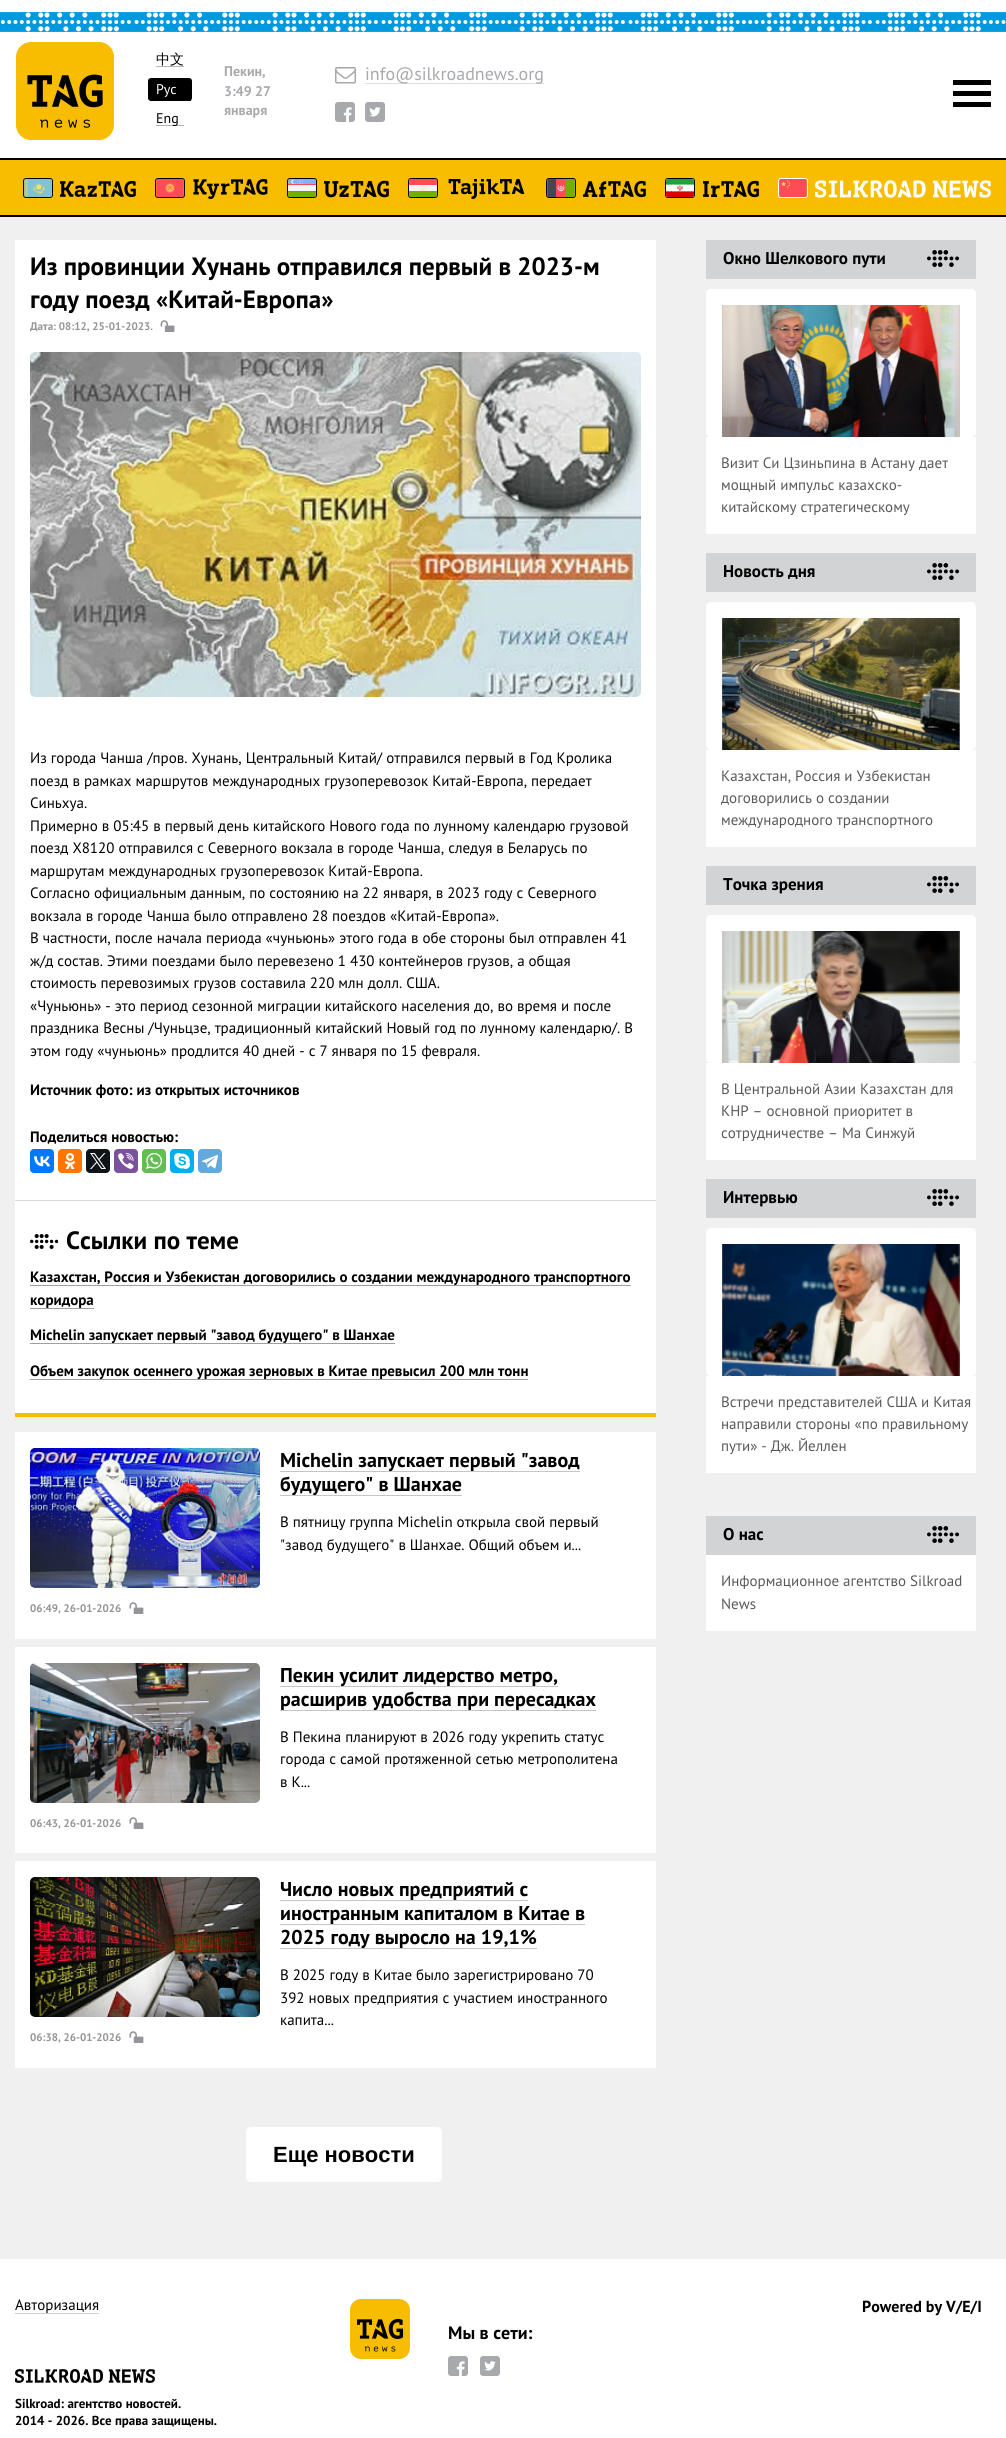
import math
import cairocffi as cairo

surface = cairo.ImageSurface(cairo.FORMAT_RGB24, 1006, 2438)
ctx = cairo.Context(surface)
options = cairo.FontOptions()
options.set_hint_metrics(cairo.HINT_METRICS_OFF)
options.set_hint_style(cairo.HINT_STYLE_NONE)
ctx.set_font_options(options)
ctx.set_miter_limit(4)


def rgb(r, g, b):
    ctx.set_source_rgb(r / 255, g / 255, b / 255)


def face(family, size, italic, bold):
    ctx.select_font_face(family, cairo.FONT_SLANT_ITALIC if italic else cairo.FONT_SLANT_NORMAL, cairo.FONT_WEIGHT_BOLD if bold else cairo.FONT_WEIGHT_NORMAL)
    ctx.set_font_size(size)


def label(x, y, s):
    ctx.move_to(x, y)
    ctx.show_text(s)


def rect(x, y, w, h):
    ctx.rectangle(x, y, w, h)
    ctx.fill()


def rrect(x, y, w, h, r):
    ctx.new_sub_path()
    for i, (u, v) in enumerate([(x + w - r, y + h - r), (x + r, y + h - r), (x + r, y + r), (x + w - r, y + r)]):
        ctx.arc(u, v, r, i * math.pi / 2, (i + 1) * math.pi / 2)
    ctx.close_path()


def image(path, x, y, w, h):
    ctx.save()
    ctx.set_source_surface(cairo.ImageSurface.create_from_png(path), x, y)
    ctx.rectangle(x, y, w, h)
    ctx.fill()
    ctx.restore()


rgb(240, 240, 240)
ctx.paint()
rgb(255, 255, 255)
rect(0, 0, 1006, 158)
image('image0.png', 0, 12, 1006, 20)
rgb(248, 189, 0)
rrect(16, 42, 98, 98, 15)
ctx.fill()
image('image1.png', 16, 42, 98, 98)
rgb(180, 180, 180)
rect(156, 66, 28, 1)
face('WenQuanYi Zen Hei Medium', 14, 0, 0)
rgb(0, 0, 0)
label(156, 64, '中文')
rrect(148, 78, 44, 23, 3)
ctx.fill()
rect(150, 100, 41, 1)
face('PT Sans', 14, 0, 0)
rgb(255, 255, 255)
label(156, 94, 'Рус')
rgb(180, 180, 180)
rect(156, 125, 28, 1)
rgb(0, 0, 0)
label(156, 123, 'Eng')
face('PT Sans', 14, 0, 1)
rgb(167, 169, 172)
label(224, 76, 'Пекин,')
label(224, 96, '3:49 27')
label(224, 115, 'января')
image('image2.png', 335, 67, 21, 17)
rgb(221, 221, 221)
rect(365, 83, 179, 1)
face('PT Sans', 18, 0, 0)
rgb(167, 169, 172)
label(365, 80, 'info@silkroadnews.org')
rrect(335, 102, 20, 20, 3)
ctx.fill()
image('image3.png', 343, 107, 9, 15)
rrect(365, 102, 20, 20, 3)
ctx.fill()
image('image4.png', 369, 107, 12, 10)
rgb(0, 0, 0)
rect(953, 80, 38, 5)
rect(953, 91, 38, 5)
rect(953, 102, 38, 5)
rgb(248, 189, 0)
rect(0, 160, 1006, 55)
rgb(0, 0, 0)
rect(0, 158, 1006, 2)
rect(0, 215, 1006, 2)
rrect(23.5, 178.5, 29, 19, 2.5)
ctx.set_line_width(1)
ctx.stroke()
image('image5.png', 24, 179, 28, 18)
image('image6.png', 60, 180, 76, 18)
rrect(155.5, 178.5, 29, 19, 2.5)
ctx.stroke()
image('image7.png', 156, 179, 28, 18)
image('image8.png', 193, 179, 75, 20)
rrect(287.5, 178.5, 29, 19, 2.5)
ctx.stroke()
image('image9.png', 288, 179, 28, 18)
image('image10.png', 324, 180, 65, 18)
rrect(408.5, 178.5, 29, 19, 2.5)
ctx.stroke()
image('image11.png', 409, 179, 28, 18)
image('image12.png', 448, 179, 77, 20)
rrect(546.5, 178.5, 29, 19, 2.5)
ctx.stroke()
image('image13.png', 547, 179, 28, 18)
image('image14.png', 583, 180, 63, 18)
rrect(665.5, 178.5, 29, 19, 2.5)
ctx.stroke()
image('image15.png', 666, 179, 28, 18)
image('image16.png', 703, 180, 56, 18)
rrect(778.5, 178.5, 29, 19, 2.5)
rgb(255, 255, 255)
ctx.stroke()
image('image17.png', 779, 179, 28, 18)
image('image18.png', 815, 180, 176, 18)
rect(15, 240, 641, 1173)
face('PT Sans', 25, 0, 1)
rgb(0, 0, 0)
label(30, 275, 'Из провинции Хунань отправился первый в 2023-м')
label(30, 308, 'году поезд «Китай-Европа»')
face('PT Sans', 11, 0, 1)
rgb(147, 149, 152)
label(30, 330, 'Дата: 08:12, 25-01-2023.')
image('image19.png', 160, 320, 15, 12)
image('image20.png', 30, 352, 611, 345)
face('PT Sans', 15, 0, 0)
rgb(0, 0, 0)
label(30, 763, 'Из города Чанша /пров. Хунань, Центральный Китай/ отправился первый в Год Кролика')
label(30, 786, 'поезд в рамках маршрутов международных грузоперевозок Китай-Европа, передает')
label(30, 808, 'Синьхуа.')
label(30, 831, 'Примерно в 05:45 в первый день китайского Нового года по лунному календарю грузовой')
label(30, 853, 'поезд X8120 отправился с Северного вокзала в городе Чанша, следуя в Беларусь по')
label(30, 876, 'маршрутам международных грузоперевозок Китай-Европа.')
label(30, 898, 'Согласно официальным данным, по состоянию на 22 января, в 2023 году с Северного')
label(30, 921, 'вокзала в городе Чанша было отправлено 28 поездов «Китай-Европа».')
label(30, 943, 'В частности, после начала периода «чуньюнь» этого года в обе стороны был отправлен 41')
label(30, 966, 'ж/д состав. Этими поездами было перевезено 1 430 контейнеров грузов, а общая')
label(30, 988, 'стоимость перевозимых грузов составила 220 млн долл. США.')
label(30, 1011, '«Чуньюнь» - это период сезонной миграции китайского населения до, во время и после')
label(30, 1033, 'праздника Весны /Чуньцзе, традиционный китайский Новый год по лунному календарю/. В')
label(30, 1056, 'этом году «чуньюнь» продлится 40 дней - с 7 января по 15 февраля.')
face('PT Sans', 15, 0, 1)
label(30, 1095, 'Источник фото: из открытых источников')
label(30, 1142, 'Поделиться новостью:')
rgb(0, 119, 255)
rrect(30, 1149, 24, 24, 4)
ctx.fill()
image('image21.png', 34, 1156, 16, 11)
rgb(255, 119, 0)
rrect(58, 1149, 24, 24, 4)
ctx.fill()
image('image22.png', 64, 1153, 12, 16)
rgb(15, 20, 25)
rrect(86, 1149, 24, 24, 4)
ctx.fill()
image('image23.png', 90, 1153, 16, 16)
rgb(123, 81, 157)
rrect(114, 1149, 24, 24, 4)
ctx.fill()
image('image24.png', 118, 1153, 16, 16)
rgb(101, 188, 84)
rrect(142, 1149, 24, 24, 4)
ctx.fill()
image('image25.png', 146, 1153, 16, 16)
rgb(0, 175, 240)
rrect(170, 1149, 24, 24, 4)
ctx.fill()
image('image26.png', 174, 1153, 16, 16)
rgb(100, 169, 220)
rrect(198, 1149, 24, 24, 4)
ctx.fill()
image('image27.png', 202, 1155, 16, 14)
rgb(217, 217, 218)
rect(15, 1200, 641, 1)
image('image28.png', 30, 1234, 28, 15)
face('PT Sans', 25, 0, 1)
rgb(0, 0, 0)
label(66, 1249, 'Ссылки по теме')
rgb(160, 159, 160)
rect(30, 1285, 601, 1)
face('PT Sans', 15, 0, 1)
rgb(0, 0, 0)
label(30, 1282, 'Казахстан, Россия и Узбекистан договорились о создании международного транспортного')
label(30, 1305, 'коридора')
rgb(160, 159, 160)
rect(30, 1308, 64, 1)
rect(30, 1343, 365, 1)
rgb(0, 0, 0)
label(30, 1340, 'Michelin запускает первый "завод будущего" в Шанхае')
rgb(160, 159, 160)
rect(30, 1379, 498, 1)
rgb(0, 0, 0)
label(30, 1376, 'Объем закупок осеннего урожая зерновых в Китае превысил 200 млн тонн')
rgb(248, 189, 0)
rect(15, 1413, 641, 4)
rgb(255, 255, 255)
rect(15, 1432, 641, 207)
rgb(198, 197, 198)
rect(280, 1471, 300, 1)
face('PT Sans', 20, 0, 1)
rgb(0, 0, 0)
label(280, 1467, 'Michelin запускает первый "завод')
rgb(198, 197, 198)
rect(280, 1495, 182, 1)
rgb(0, 0, 0)
label(280, 1491, 'будущего" в Шанхае')
face('PT Sans', 15, 0, 0)
label(280, 1527, 'В пятницу группа Michelin открыла свой первый')
label(280, 1550, '"завод будущего" в Шанхае. Общий объем и...')
image('image29.png', 30, 1448, 230, 140)
face('PT Sans', 11, 0, 1)
rgb(147, 149, 152)
label(30, 1612, '06:49, 26-01-2026')
image('image30.png', 129, 1602, 15, 12)
rgb(255, 255, 255)
rect(15, 1647, 641, 206)
rgb(198, 197, 198)
rect(280, 1686, 278, 1)
face('PT Sans', 20, 0, 1)
rgb(0, 0, 0)
label(280, 1682, 'Пекин усилит лидерство метро,')
rgb(198, 197, 198)
rect(280, 1710, 316, 1)
rgb(0, 0, 0)
label(280, 1706, 'расширив удобства при пересадках')
face('PT Sans', 15, 0, 0)
label(280, 1742, 'В Пекина планируют в 2026 году укрепить статус')
label(280, 1764, 'города с самой протяженной сетью метрополитена')
label(280, 1787, 'в К...')
image('image31.png', 30, 1663, 230, 140)
face('PT Sans', 11, 0, 1)
rgb(147, 149, 152)
label(30, 1827, '06:43, 26-01-2026')
image('image30.png', 129, 1817, 15, 12)
rgb(255, 255, 255)
rect(15, 1861, 641, 207)
face('PT Sans', 20, 0, 1)
rgb(0, 0, 0)
label(280, 1896, 'Число новых предприятий с')
rgb(198, 197, 198)
rect(280, 1900, 248, 1)
rgb(0, 0, 0)
label(280, 1920, 'иностранным капиталом в Китае в')
rgb(198, 197, 198)
rect(280, 1924, 305, 1)
rect(280, 1948, 257, 1)
rgb(0, 0, 0)
label(280, 1944, '2025 году выросло на 19,1%')
face('PT Sans', 15, 0, 0)
label(280, 1980, 'В 2025 году в Китае было зарегистрировано 70')
label(280, 2003, '392 новых предприятия с участием иностранного')
label(280, 2025, 'капита...')
image('image32.png', 30, 1877, 230, 140)
face('PT Sans', 11, 0, 1)
rgb(147, 149, 152)
label(30, 2041, '06:38, 26-01-2026')
image('image30.png', 129, 2031, 15, 12)
rgb(255, 255, 255)
rrect(246, 2127, 196, 55, 5)
ctx.fill()
face('Liberation Sans', 22, 0, 1)
rgb(0, 0, 0)
label(273, 2162, 'Еще новости')
rgb(209, 211, 212)
rect(706, 240, 270, 39)
face('PT Sans', 17, 0, 1)
rgb(0, 0, 0)
label(723, 264, 'Окно Шелкового пути')
image('image33.png', 927, 250, 32, 17)
rgb(255, 255, 255)
rrect(706, 289, 270, 148, 5)
ctx.fill()
image('image34.png', 722, 305, 238, 132)
rect(706, 437, 270, 97)
face('PT Sans', 15, 0, 0)
rgb(88, 89, 91)
label(721, 468, 'Визит Си Цзиньпина в Астану дает')
label(721, 490, 'мощный импульс казахско-')
label(721, 512, 'китайскому стратегическому')
rgb(209, 211, 212)
rect(706, 553, 270, 39)
face('PT Sans', 17, 0, 1)
rgb(0, 0, 0)
label(723, 577, 'Новость дня')
image('image33.png', 927, 563, 32, 17)
rgb(255, 255, 255)
rrect(706, 602, 270, 148, 5)
ctx.fill()
image('image35.png', 722, 618, 238, 132)
rect(706, 750, 270, 97)
face('PT Sans', 15, 0, 0)
rgb(88, 89, 91)
label(721, 781, 'Казахстан, Россия и Узбекистан')
ctx.save()
ctx.rectangle(721, 765, 250, 66)
ctx.clip()
label(721, 803, 'договорились о создании')
ctx.restore()
label(721, 825, 'международного транспортного')
rgb(209, 211, 212)
rect(706, 866, 270, 39)
face('PT Sans', 17, 0, 1)
rgb(0, 0, 0)
label(723, 890, 'Точка зрения')
image('image33.png', 927, 876, 32, 17)
rgb(255, 255, 255)
rrect(706, 915, 270, 148, 5)
ctx.fill()
image('image36.png', 722, 931, 238, 132)
rect(706, 1063, 270, 97)
face('PT Sans', 15, 0, 0)
rgb(88, 89, 91)
label(721, 1094, 'В Центральной Азии Казахстан для')
label(721, 1116, 'КНР – основной приоритет в')
label(721, 1138, 'сотрудничестве – Ма Синжуй')
rgb(209, 211, 212)
rect(706, 1179, 270, 39)
face('PT Sans', 17, 0, 1)
rgb(0, 0, 0)
label(723, 1203, 'Интервью')
image('image33.png', 927, 1189, 32, 17)
rgb(255, 255, 255)
rrect(706, 1228, 270, 148, 5)
ctx.fill()
image('image37.png', 722, 1244, 238, 132)
rect(706, 1376, 270, 97)
face('PT Sans', 15, 0, 0)
rgb(88, 89, 91)
label(721, 1407, 'Встречи представителей США и Китая')
label(721, 1429, 'направили стороны «по правильному')
label(721, 1451, 'пути» - Дж. Йеллен')
rgb(209, 211, 212)
rect(706, 1516, 270, 39)
face('PT Sans', 17, 0, 1)
rgb(0, 0, 0)
label(723, 1540, 'О нас')
image('image33.png', 927, 1526, 32, 17)
rgb(255, 255, 255)
rect(706, 1555, 270, 76)
face('PT Sans', 15, 0, 0)
rgb(88, 89, 91)
label(721, 1586, 'Информационное агентство Silkroad')
label(721, 1609, 'News')
rgb(255, 255, 255)
rect(0, 2259, 1006, 179)
rgb(210, 209, 210)
rect(15, 2313, 84, 1)
rgb(0, 0, 0)
label(15, 2310, 'Авторизация')
image('image38.png', 15, 2369, 140, 14)
face('PT Sans', 13, 0, 1)
label(15, 2408, 'Silkroad: агентство новостей.')
label(15, 2425, '2014 - 2026. Все права защищены.')
face('PT Sans', 16, 0, 1)
label(862, 2312, 'Powered by V/E/I')
image('image39.png', 350, 2299, 60, 60)
face('PT Sans', 18, 0, 1)
label(448, 2339, 'Мы в сети:')
rgb(167, 169, 172)
rrect(448, 2356, 20, 20, 3)
ctx.fill()
image('image3.png', 456, 2361, 9, 15)
rrect(480, 2356, 20, 20, 3)
ctx.fill()
image('image4.png', 484, 2361, 12, 10)
surface.write_to_png('render.png')
